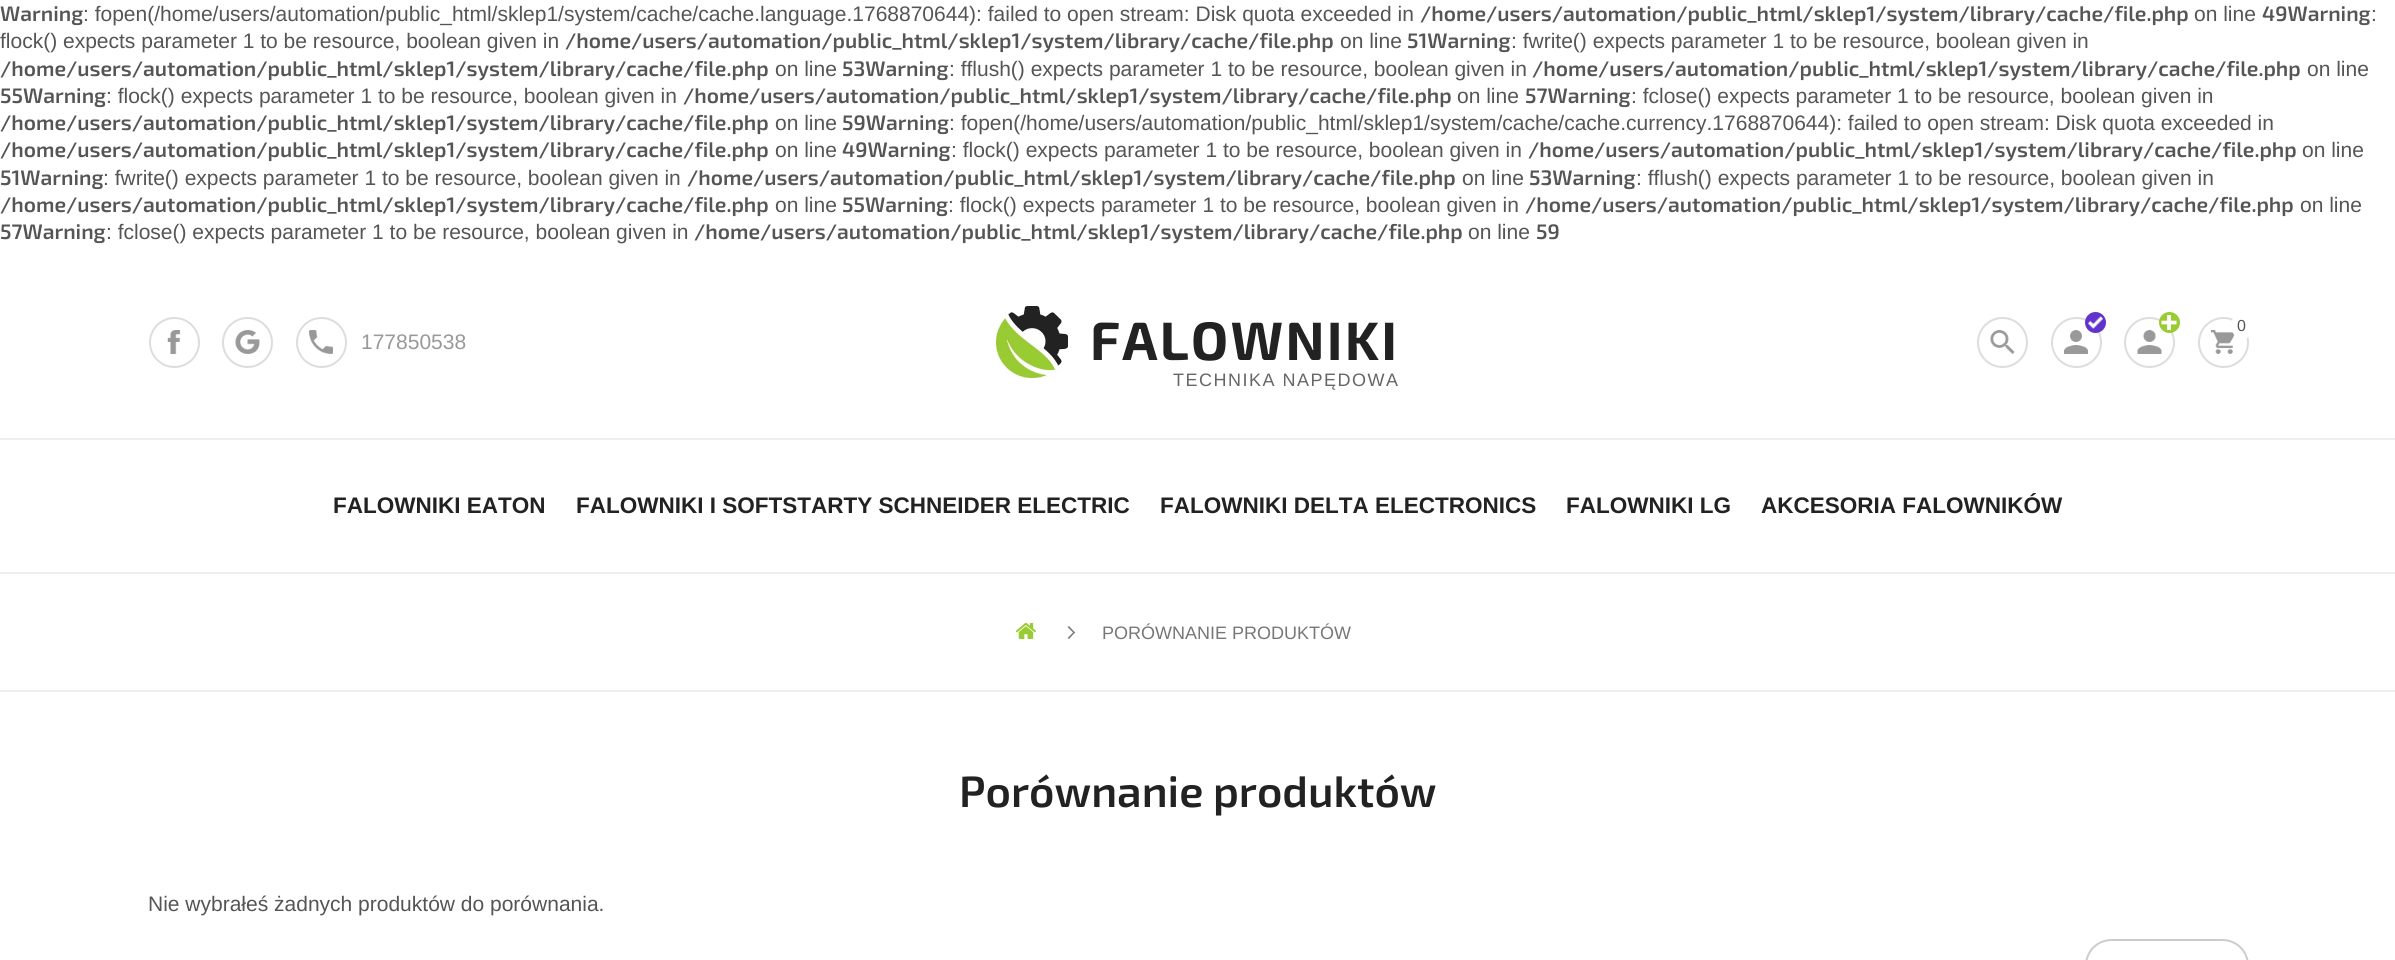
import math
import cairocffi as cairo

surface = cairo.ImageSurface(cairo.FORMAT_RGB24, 2395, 960)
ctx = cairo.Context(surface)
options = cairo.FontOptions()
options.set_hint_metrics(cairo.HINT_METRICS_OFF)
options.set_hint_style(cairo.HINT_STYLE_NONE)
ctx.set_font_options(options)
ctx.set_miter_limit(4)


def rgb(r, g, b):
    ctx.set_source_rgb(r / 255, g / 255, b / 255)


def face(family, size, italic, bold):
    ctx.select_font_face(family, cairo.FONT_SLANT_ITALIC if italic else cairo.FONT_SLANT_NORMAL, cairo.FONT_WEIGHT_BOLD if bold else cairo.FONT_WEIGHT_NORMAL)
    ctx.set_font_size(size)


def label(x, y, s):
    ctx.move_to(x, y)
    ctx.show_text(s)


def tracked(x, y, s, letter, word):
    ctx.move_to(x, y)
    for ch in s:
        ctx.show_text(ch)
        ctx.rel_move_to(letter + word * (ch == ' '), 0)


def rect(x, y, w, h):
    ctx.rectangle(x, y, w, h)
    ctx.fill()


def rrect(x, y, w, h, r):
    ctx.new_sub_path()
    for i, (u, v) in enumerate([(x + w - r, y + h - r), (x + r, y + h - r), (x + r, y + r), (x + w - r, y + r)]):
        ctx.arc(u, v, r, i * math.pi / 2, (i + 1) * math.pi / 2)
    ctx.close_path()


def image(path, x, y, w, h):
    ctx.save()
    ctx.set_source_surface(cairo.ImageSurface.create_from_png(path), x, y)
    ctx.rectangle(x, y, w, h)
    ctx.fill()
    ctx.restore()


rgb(255, 255, 255)
ctx.paint()
face('Exo 2 SemiBold', 21, 0, 0)
rgb(85, 85, 85)
label(0, 21, 'Warning')
face('Arimo', 21, 0, 0)
label(83, 21, ': fopen(/home/users/automation/public_html/sklep1/system/cache/cache.language.1768870644): failed to open stream: Disk quota exceeded in')
face('Exo 2 SemiBold', 21, 0, 0)
label(1420, 21, '/home/users/automation/public_html/sklep1/system/library/cache/file.php')
face('Arimo', 21, 0, 0)
label(2194, 21, 'on line')
face('Exo 2 SemiBold', 21, 0, 0)
label(2262, 21, '49Warning')
face('Arimo', 21, 0, 0)
label(2371, 21, ':')
label(0, 48, 'flock() expects parameter 1 to be resource, boolean given in')
face('Exo 2 SemiBold', 21, 0, 0)
label(565, 48, '/home/users/automation/public_html/sklep1/system/library/cache/file.php')
face('Arimo', 21, 0, 0)
label(1340, 48, 'on line')
face('Exo 2 SemiBold', 21, 0, 0)
label(1407, 48, '51Warning')
face('Arimo', 21, 0, 0)
label(1511, 48, ': fwrite() expects parameter 1 to be resource, boolean given in')
face('Exo 2 SemiBold', 21, 0, 0)
label(0, 76, '/home/users/automation/public_html/sklep1/system/library/cache/file.php')
face('Arimo', 21, 0, 0)
label(775, 76, 'on line')
face('Exo 2 SemiBold', 21, 0, 0)
label(842, 76, '53Warning')
face('Arimo', 21, 0, 0)
label(949, 76, ': fflush() expects parameter 1 to be resource, boolean given in')
face('Exo 2 SemiBold', 21, 0, 0)
label(1532, 76, '/home/users/automation/public_html/sklep1/system/library/cache/file.php')
face('Arimo', 21, 0, 0)
label(2307, 76, 'on line')
face('Exo 2 SemiBold', 21, 0, 0)
label(0, 103, '55Warning')
face('Arimo', 21, 0, 0)
label(106, 103, ': flock() expects parameter 1 to be resource, boolean given in')
face('Exo 2 SemiBold', 21, 0, 0)
label(683, 103, '/home/users/automation/public_html/sklep1/system/library/cache/file.php')
face('Arimo', 21, 0, 0)
label(1457, 103, 'on line')
face('Exo 2 SemiBold', 21, 0, 0)
label(1525, 103, '57Warning')
face('Arimo', 21, 0, 0)
label(1631, 103, ': fclose() expects parameter 1 to be resource, boolean given in')
face('Exo 2 SemiBold', 21, 0, 0)
label(0, 130, '/home/users/automation/public_html/sklep1/system/library/cache/file.php')
face('Arimo', 21, 0, 0)
label(775, 130, 'on line')
face('Exo 2 SemiBold', 21, 0, 0)
label(842, 130, '59Warning')
face('Arimo', 21, 0, 0)
label(949, 130, ': fopen(/home/users/automation/public_html/sklep1/system/cache/cache.currency.1768870644): failed to open stream: Disk quota exceeded in')
face('Exo 2 SemiBold', 21, 0, 0)
label(0, 157, '/home/users/automation/public_html/sklep1/system/library/cache/file.php')
face('Arimo', 21, 0, 0)
label(775, 157, 'on line')
face('Exo 2 SemiBold', 21, 0, 0)
label(842, 157, '49Warning')
face('Arimo', 21, 0, 0)
label(951, 157, ': flock() expects parameter 1 to be resource, boolean given in')
face('Exo 2 SemiBold', 21, 0, 0)
label(1528, 157, '/home/users/automation/public_html/sklep1/system/library/cache/file.php')
face('Arimo', 21, 0, 0)
label(2302, 157, 'on line')
face('Exo 2 SemiBold', 21, 0, 0)
label(0, 185, '51Warning')
face('Arimo', 21, 0, 0)
label(103, 185, ': fwrite() expects parameter 1 to be resource, boolean given in')
face('Exo 2 SemiBold', 21, 0, 0)
label(687, 185, '/home/users/automation/public_html/sklep1/system/library/cache/file.php')
face('Arimo', 21, 0, 0)
label(1462, 185, 'on line')
face('Exo 2 SemiBold', 21, 0, 0)
label(1529, 185, '53Warning')
face('Arimo', 21, 0, 0)
label(1636, 185, ': fflush() expects parameter 1 to be resource, boolean given in')
face('Exo 2 SemiBold', 21, 0, 0)
label(0, 212, '/home/users/automation/public_html/sklep1/system/library/cache/file.php')
face('Arimo', 21, 0, 0)
label(775, 212, 'on line')
face('Exo 2 SemiBold', 21, 0, 0)
label(842, 212, '55Warning')
face('Arimo', 21, 0, 0)
label(948, 212, ': flock() expects parameter 1 to be resource, boolean given in')
face('Exo 2 SemiBold', 21, 0, 0)
label(1525, 212, '/home/users/automation/public_html/sklep1/system/library/cache/file.php')
face('Arimo', 21, 0, 0)
label(2300, 212, 'on line')
face('Exo 2 SemiBold', 21, 0, 0)
label(0, 239, '57Warning')
face('Arimo', 21, 0, 0)
label(106, 239, ': fclose() expects parameter 1 to be resource, boolean given in')
face('Exo 2 SemiBold', 21, 0, 0)
label(694, 239, '/home/users/automation/public_html/sklep1/system/library/cache/file.php')
face('Arimo', 21, 0, 0)
label(1468, 239, 'on line')
face('Exo 2 SemiBold', 21, 0, 0)
label(1536, 239, '59')
ctx.new_path()
ctx.arc(174.5, 342.5, 24.5, 0, 2 * math.pi)
rgb(221, 221, 221)
ctx.stroke()
image('image0.png', 167, 330, 13, 24)
ctx.arc(247.5, 342.5, 24.5, 0, 2 * math.pi)
ctx.stroke()
image('image1.png', 235, 330, 25, 24)
ctx.arc(321.5, 342.5, 24.5, 0, 2 * math.pi)
ctx.stroke()
image('image2.png', 309, 330, 24, 24)
face('Arimo', 21, 0, 0)
rgb(153, 153, 153)
label(361, 349, '177850538')
image('image3.png', 996, 306, 72, 72)
face('Exo 2', 54, 0, 1)
rgb(34, 34, 34)
tracked(1090, 360, 'FALOWNIKI', 2.25, 0)
face('Arimo', 18, 0, 0)
rgb(102, 102, 102)
tracked(1173, 386, 'TECHNIKA NAPĘDOWA', 1.5, 0)
ctx.new_path()
ctx.arc(2002.5, 342.5, 24.5, 0, 2 * math.pi)
rgb(221, 221, 221)
ctx.stroke()
image('image4.png', 1990, 330, 25, 24)
ctx.arc(2076.5, 342.5, 24.5, 0, 2 * math.pi)
ctx.stroke()
image('image6.png', 2064, 330, 24, 24)
rgb(97, 51, 203)
ctx.arc(2095.5, 322.5, 10.5, 0, 2 * math.pi)
ctx.fill()
image('image5.png', 2088, 316, 15, 13)
ctx.arc(2149.5, 342.5, 24.5, 0, 2 * math.pi)
rgb(221, 221, 221)
ctx.stroke()
image('image8.png', 2137, 330, 25, 24)
rgb(153, 203, 51)
ctx.arc(2169.5, 322.5, 10.5, 0, 2 * math.pi)
ctx.fill()
image('image7.png', 2161, 315, 16, 15)
ctx.arc(2223.5, 342.5, 24.5, 0, 2 * math.pi)
rgb(221, 221, 221)
ctx.stroke()
image('image9.png', 2211, 330, 24, 24)
rgb(255, 255, 255)
rrect(2232, 312, 21, 27, 10.5)
ctx.fill()
face('Liberation Sans', 16, 0, 0)
rgb(85, 85, 85)
label(2237, 331, '0')
rgb(238, 238, 238)
rect(0, 438, 2395, 2)
face('Arimo', 22.5, 0, 1)
rgb(34, 34, 34)
label(333, 513, 'FALOWNIKI EATON')
label(576, 513, 'FALOWNIKI I SOFTSTARTY SCHNEIDER ELECTRIC')
label(1160, 513, 'FALOWNIKI DELTA ELECTRONICS')
label(1566, 513, 'FALOWNIKI LG')
label(1761, 513, 'AKCESORIA FALOWNIKÓW')
rgb(238, 238, 238)
rect(0, 572, 2395, 2)
rect(0, 690, 2395, 2)
image('image10.png', 1015, 622, 21, 17)
rgb(120, 125, 126)
ctx.new_path()
ctx.move_to(1067.5, 627)
ctx.line_to(1069, 626)
ctx.line_to(1075, 632.5)
ctx.line_to(1074, 633.5)
ctx.close_path()
ctx.fill()
ctx.new_path()
ctx.move_to(1067.5, 638)
ctx.line_to(1074, 631.5)
ctx.line_to(1075, 632.5)
ctx.line_to(1069, 639)
ctx.close_path()
ctx.fill()
face('Arimo', 18, 0, 0)
rgb(119, 119, 119)
label(1102, 639, 'PORÓWNANIE PRODUKTÓW')
face('Exo 2 SemiBold', 43.75, 0, 0)
rgb(34, 34, 34)
label(959, 807, 'Porównanie produktów')
face('Arimo', 21, 0, 0)
rgb(85, 85, 85)
label(148, 911, 'Nie wybrałeś żadnych produktów do porównania.')
rrect(2086, 940, 162, 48, 25.5)
rgb(204, 204, 204)
ctx.stroke()
surface.write_to_png('render.png')
